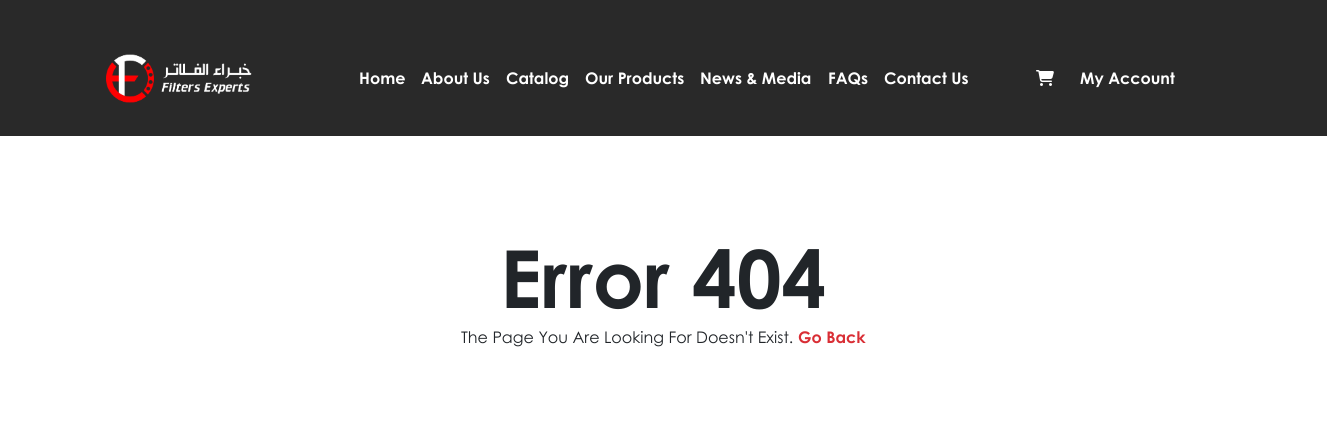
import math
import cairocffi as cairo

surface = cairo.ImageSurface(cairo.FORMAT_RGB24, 1327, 433)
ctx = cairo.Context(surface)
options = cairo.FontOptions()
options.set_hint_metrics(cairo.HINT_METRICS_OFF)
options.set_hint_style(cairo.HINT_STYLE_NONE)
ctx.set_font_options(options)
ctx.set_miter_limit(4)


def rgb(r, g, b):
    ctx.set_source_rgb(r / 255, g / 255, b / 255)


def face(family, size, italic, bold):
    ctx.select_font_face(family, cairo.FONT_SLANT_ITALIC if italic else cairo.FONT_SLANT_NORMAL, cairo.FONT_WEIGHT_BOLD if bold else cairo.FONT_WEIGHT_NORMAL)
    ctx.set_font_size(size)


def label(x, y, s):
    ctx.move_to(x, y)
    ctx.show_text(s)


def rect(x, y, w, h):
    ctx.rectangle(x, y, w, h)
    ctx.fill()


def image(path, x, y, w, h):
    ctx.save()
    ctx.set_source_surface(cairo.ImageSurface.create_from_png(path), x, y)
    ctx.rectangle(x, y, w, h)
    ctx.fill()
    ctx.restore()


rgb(255, 255, 255)
ctx.paint()
rgb(41, 41, 41)
rect(0, 0, 1327, 136)
image('image0.png', 106, 54, 146, 49)
face('Century Gothic', 16, 0, 1)
rgb(255, 255, 255)
label(359, 84, 'Home')
label(421, 84, 'About Us')
label(506, 84, 'Catalog')
label(585, 84, 'Our Products')
label(700, 84, 'News & Media')
label(828, 84, 'FAQs')
label(884, 84, 'Contact Us')
image('image1.png', 1036, 70, 18, 16)
label(1080, 84, 'My Account')
face('Century Gothic', 80, 0, 1)
rgb(33, 37, 41)
label(500, 308, 'Error 404')
face('Century Gothic', 16, 0, 0)
label(461, 343, 'The Page You Are Looking For Doesn\'t Exist.')
face('Century Gothic', 16, 0, 1)
rgb(217, 46, 53)
label(798, 343, 'Go Back')
surface.write_to_png('render.png')
